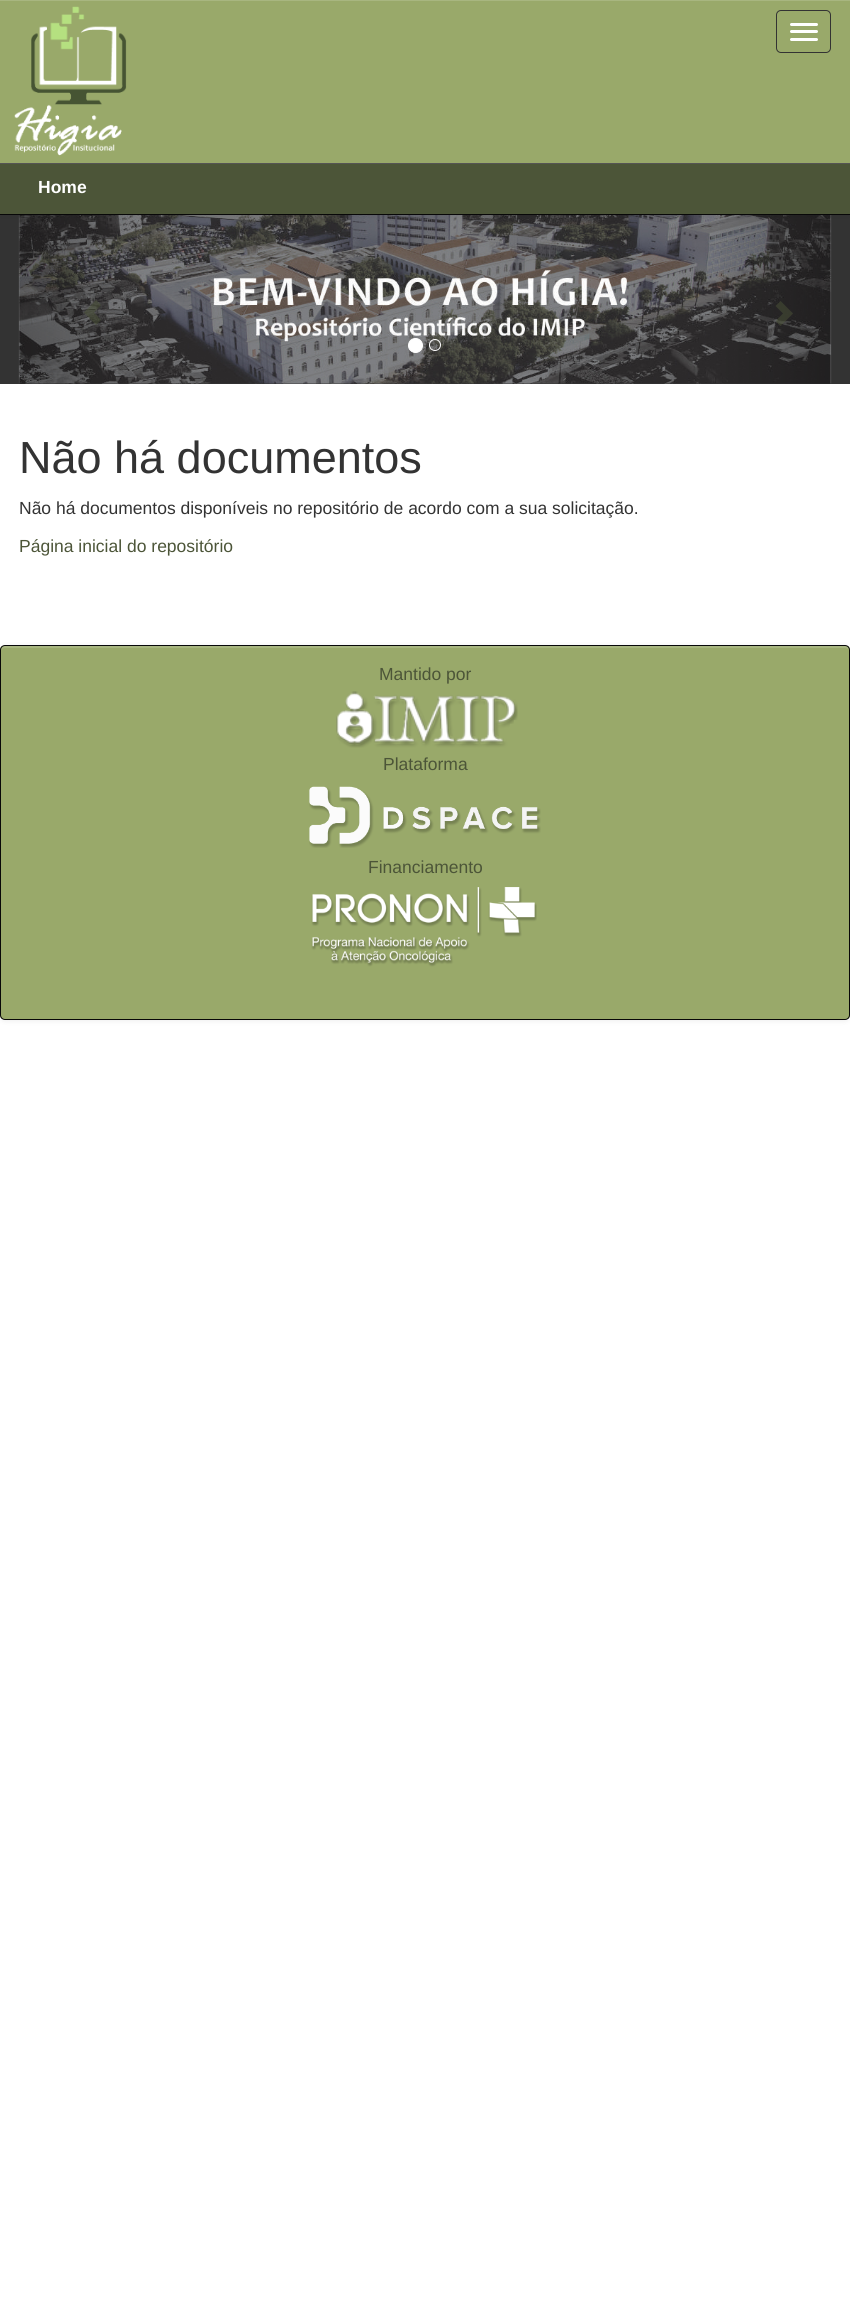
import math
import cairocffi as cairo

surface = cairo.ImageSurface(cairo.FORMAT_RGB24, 850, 2298)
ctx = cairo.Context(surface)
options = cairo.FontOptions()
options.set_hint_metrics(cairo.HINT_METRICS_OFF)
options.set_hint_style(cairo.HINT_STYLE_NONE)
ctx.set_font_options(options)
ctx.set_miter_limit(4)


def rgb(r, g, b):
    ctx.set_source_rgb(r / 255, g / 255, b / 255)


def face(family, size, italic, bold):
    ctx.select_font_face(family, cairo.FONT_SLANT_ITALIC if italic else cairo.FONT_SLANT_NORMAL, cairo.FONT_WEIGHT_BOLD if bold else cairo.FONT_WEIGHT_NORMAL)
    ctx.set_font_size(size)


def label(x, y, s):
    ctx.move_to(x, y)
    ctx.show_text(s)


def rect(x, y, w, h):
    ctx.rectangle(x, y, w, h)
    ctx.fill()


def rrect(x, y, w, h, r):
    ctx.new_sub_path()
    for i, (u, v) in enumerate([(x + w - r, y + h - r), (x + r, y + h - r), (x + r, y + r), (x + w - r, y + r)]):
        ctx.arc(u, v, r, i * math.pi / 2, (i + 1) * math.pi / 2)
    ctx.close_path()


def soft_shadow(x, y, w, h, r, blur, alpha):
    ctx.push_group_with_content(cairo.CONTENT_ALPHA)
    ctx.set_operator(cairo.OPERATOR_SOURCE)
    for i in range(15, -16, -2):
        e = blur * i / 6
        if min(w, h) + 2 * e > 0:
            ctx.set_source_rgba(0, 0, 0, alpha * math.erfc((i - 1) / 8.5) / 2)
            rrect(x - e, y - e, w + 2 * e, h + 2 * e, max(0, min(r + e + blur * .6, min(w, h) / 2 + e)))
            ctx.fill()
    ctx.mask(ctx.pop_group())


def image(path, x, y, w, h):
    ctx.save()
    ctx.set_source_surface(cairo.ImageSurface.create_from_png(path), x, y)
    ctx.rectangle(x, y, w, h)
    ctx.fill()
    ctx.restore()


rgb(255, 255, 255)
ctx.paint()
rgb(51, 51, 51)
rect(0, 215, 850, 169)
image('image1.png', 18, 215, 814, 169)
gradient = cairo.LinearGradient(19, 298, 141, 298)
gradient.add_color_stop_rgba(0, 0, 0, 0, 0.25)
gradient.add_color_stop_rgba(1, 0, 0, 0, 0)
ctx.set_source(gradient)
rect(19, 215, 111, 169)
gradient = cairo.LinearGradient(710, 298, 831, 298)
gradient.add_color_stop_rgba(0, 0, 0, 0, 0)
gradient.add_color_stop_rgba(1, 0, 0, 0, 0.25)
ctx.set_source(gradient)
rect(720, 215, 111, 169)
rgb(0, 0, 0)
soft_shadow(0, 1, 850, 215, 0, 3, 0.07)
rgb(153, 169, 106)
rect(0, 1, 850, 162)
rgb(168, 182, 128)
rect(0, 0, 850, 1)
rgb(8, 8, 8)
rect(0, 214, 850, 1)
image('image0.png', 14, 6, 113, 150)
rrect(776.5, 10.5, 54, 42, 4.5)
rgb(51, 51, 51)
ctx.set_line_width(1)
ctx.stroke()
rgb(255, 255, 255)
rrect(790, 23, 28, 3, 1.5)
ctx.fill()
rrect(790, 30, 28, 3, 1.5)
ctx.fill()
rrect(790, 38, 28, 3, 1.5)
ctx.fill()
rgb(85, 85, 85)
rect(0, 163, 850, 1)
rgb(76, 85, 56)
rect(0, 164, 850, 50)
face('Liberation Sans', 17.5, 0, 1)
rgb(255, 255, 255)
label(38, 193, 'Home')
ctx.set_source_rgba(0.298, 0.333, 0.22, 0.5)
ctx.new_path()
ctx.move_to(96, 325)
ctx.line_to(101, 320)
ctx.line_to(94, 312.5)
ctx.line_to(101, 305)
ctx.line_to(96, 300)
ctx.line_to(84, 312.5)
ctx.close_path()
ctx.fill()
rgb(255, 255, 255)
ctx.arc(415.5, 345.5, 7, 0, 2 * math.pi)
ctx.fill_preserve()
ctx.stroke()
ctx.arc(435, 345, 5.5, 0, 2 * math.pi)
ctx.stroke()
ctx.set_source_rgba(0.298, 0.333, 0.22, 0.5)
ctx.new_path()
ctx.move_to(780.5, 326)
ctx.line_to(775.5, 321)
ctx.line_to(783, 313.5)
ctx.line_to(775.5, 306)
ctx.line_to(780.5, 301)
ctx.line_to(793, 313.5)
ctx.close_path()
ctx.fill()
face('Liberation Sans', 45, 0, 0)
rgb(51, 51, 51)
label(19, 473, 'Não há documentos')
face('Liberation Sans', 17.5, 0, 0)
label(19, 514, 'Não há documentos disponíveis no repositório de acordo com a sua solicitação.')
rgb(76, 85, 56)
label(19, 552, 'Página inicial do repositório')
rgb(0, 0, 0)
soft_shadow(0, 646, 850, 375, 5, 3, 0.07)
ctx.save()
rrect(0, 645, 850, 375, 5)
ctx.clip()
rgb(153, 169, 106)
rect(0, 646, 850, 373)
ctx.restore()
rgb(168, 182, 128)
ctx.new_path()
ctx.move_to(5, 648)
ctx.line_to(845, 648)
ctx.curve_to(847, 648, 849, 649, 849, 651)
ctx.curve_to(849, 648, 848, 646, 845, 646)
ctx.line_to(5, 646)
ctx.curve_to(2, 646, 1, 648, 1, 651)
ctx.curve_to(1, 649, 3, 648, 5, 648)
ctx.close_path()
ctx.fill()
rrect(0.5, 645.5, 849, 374, 4.5)
rgb(8, 8, 8)
ctx.stroke()
rgb(76, 85, 56)
label(379, 680, 'Mantido por')
image('image2.png', 336, 691, 182, 57)
label(383, 770, 'Plataforma')
image('image3.png', 309, 786, 232, 62)
label(368, 873, 'Financiamento')
image('image4.png', 311, 887, 226, 80)
surface.write_to_png('render.png')
